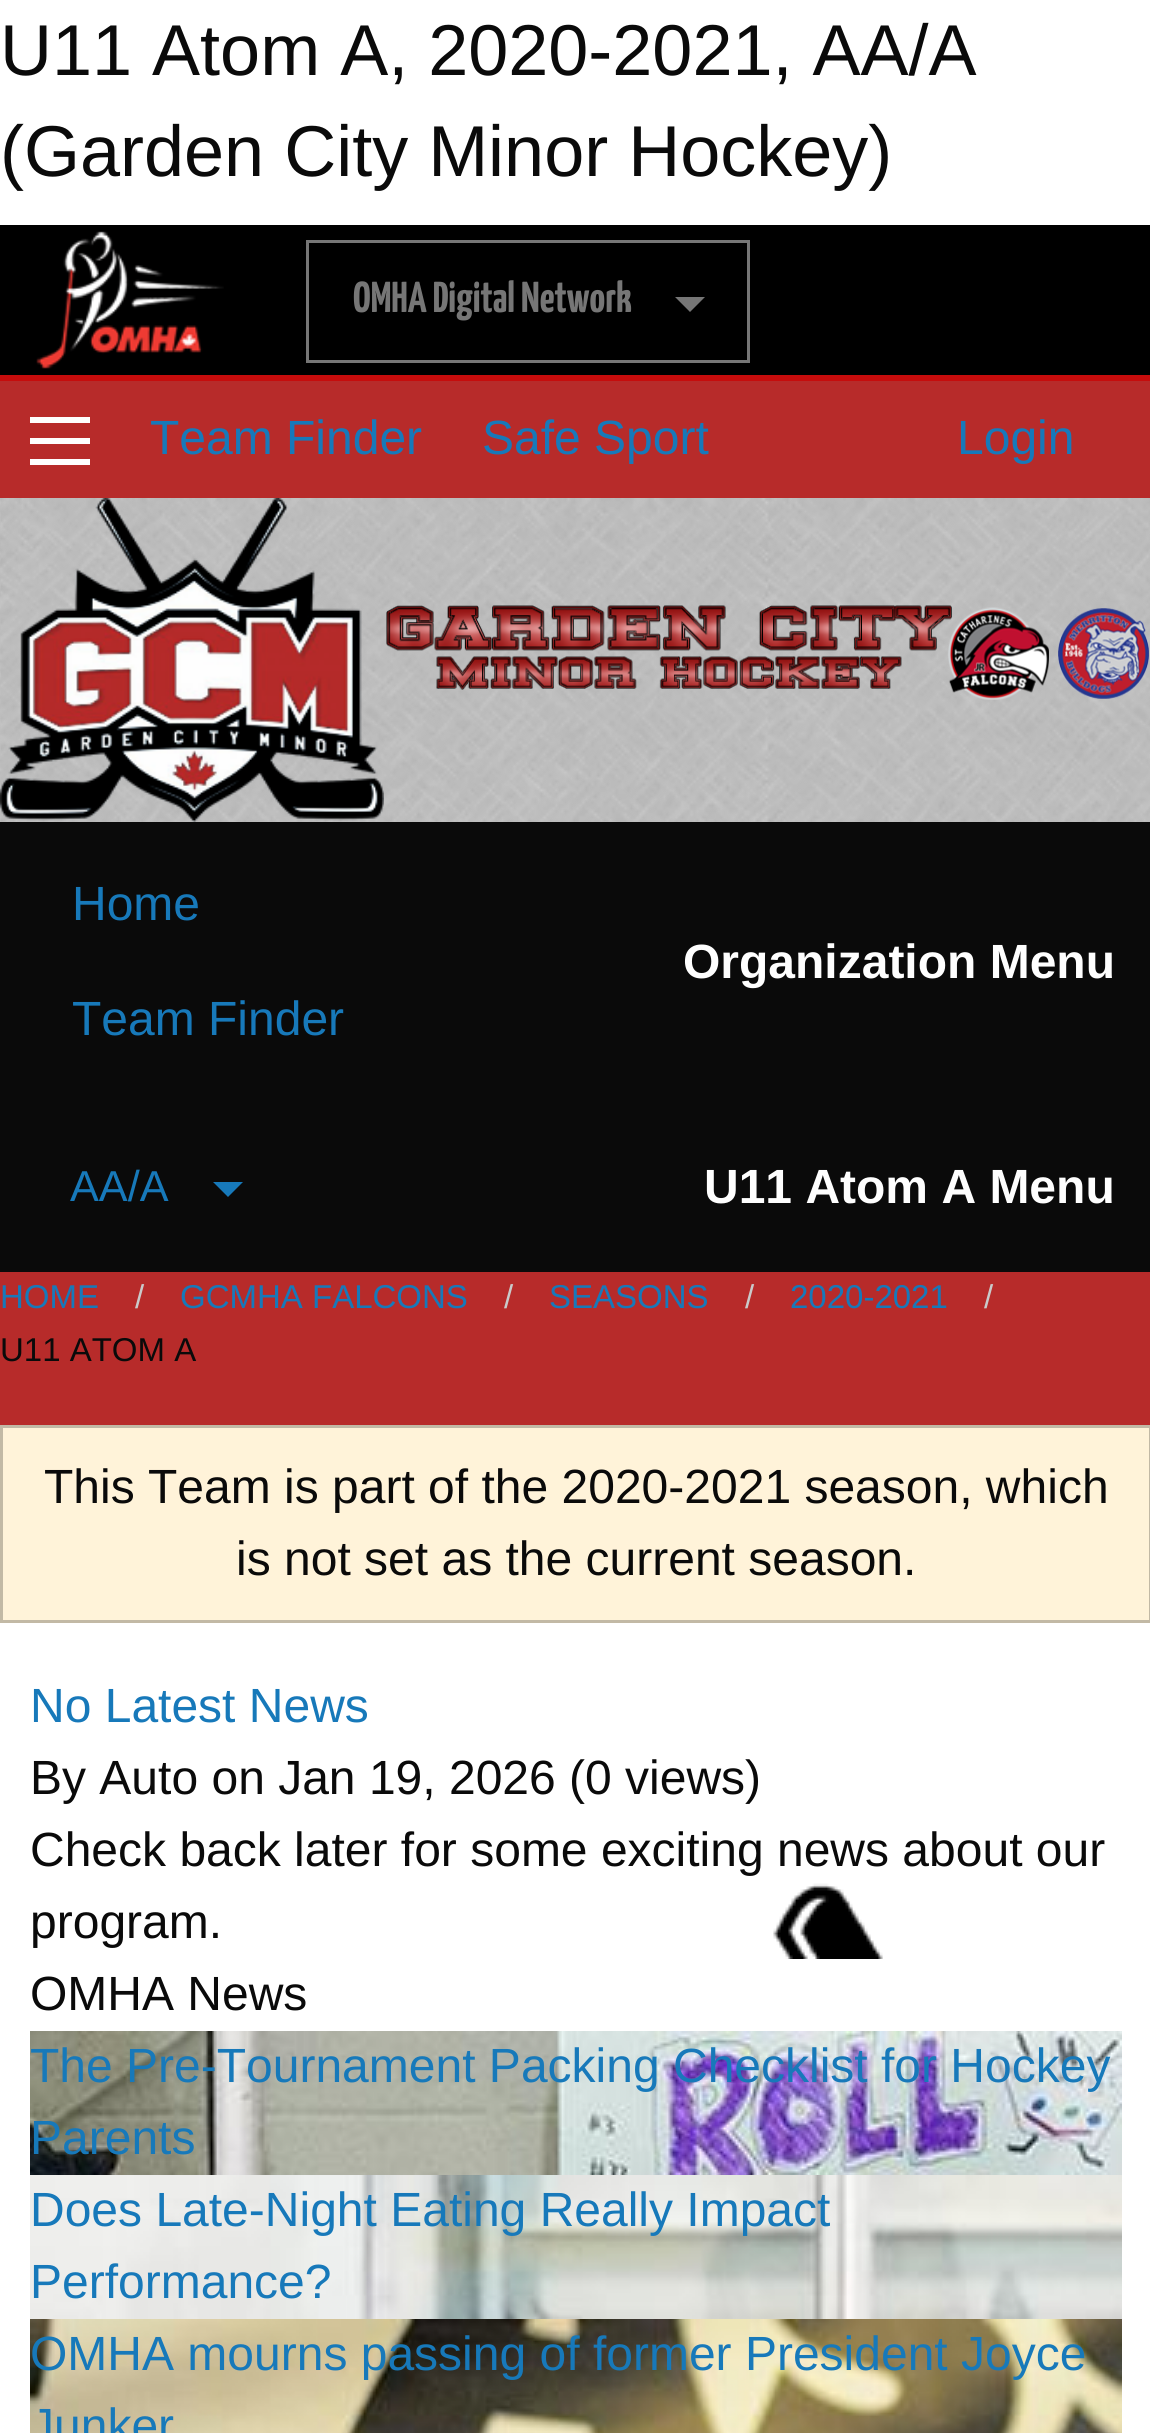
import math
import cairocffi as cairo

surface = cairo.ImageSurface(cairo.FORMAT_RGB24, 1150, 2433)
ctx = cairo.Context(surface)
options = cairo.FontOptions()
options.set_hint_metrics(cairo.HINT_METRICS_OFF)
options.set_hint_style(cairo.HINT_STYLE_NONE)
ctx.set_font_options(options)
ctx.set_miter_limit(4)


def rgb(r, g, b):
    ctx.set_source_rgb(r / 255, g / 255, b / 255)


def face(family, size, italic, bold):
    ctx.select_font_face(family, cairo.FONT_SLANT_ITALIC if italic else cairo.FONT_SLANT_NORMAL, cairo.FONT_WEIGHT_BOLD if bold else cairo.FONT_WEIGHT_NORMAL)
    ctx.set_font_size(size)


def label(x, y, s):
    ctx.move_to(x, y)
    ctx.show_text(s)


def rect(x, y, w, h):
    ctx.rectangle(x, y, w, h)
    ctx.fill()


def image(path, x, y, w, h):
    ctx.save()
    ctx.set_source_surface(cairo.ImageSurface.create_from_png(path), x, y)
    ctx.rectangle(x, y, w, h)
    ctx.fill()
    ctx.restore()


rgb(255, 255, 255)
ctx.paint()
face('Liberation Sans', 72, 0, 0)
rgb(10, 10, 10)
label(0, 75, 'U11 Atom A, 2020-2021, AA/A')
label(0, 176, '(Garden City Minor Hockey)')
rgb(0, 0, 0)
rect(0, 225, 1150, 150)
rgb(198, 12, 12)
rect(0, 375, 1150, 6)
image('image0.png', 36, 231, 188, 138)
ctx.rectangle(307.5, 241.5, 441, 120)
rgb(118, 118, 118)
ctx.set_line_width(3)
ctx.stroke()
face('Yanone Kaffeesatz ExtraLight', 43.25, 0, 0)
label(353, 312, 'OMHA Digital Network')
ctx.new_path()
ctx.move_to(675, 297)
ctx.line_to(705, 297)
ctx.line_to(690, 312)
ctx.close_path()
ctx.fill()
rgb(183, 43, 42)
rect(0, 381, 1150, 1044)
rgb(254, 254, 254)
rect(30, 459, 60, 6)
rect(30, 438, 60, 6)
rect(30, 417, 60, 6)
face('Liberation Sans', 48, 0, 0)
rgb(23, 121, 186)
label(150, 454, 'Team Finder')
label(482, 454, 'Safe Sport')
label(957, 454, 'Login')
rgb(167, 167, 167)
rect(0, 498, 1150, 324)
image('image1.png', 0, 498, 1150, 324)
image('image2.png', 0, 498, 384, 324)
image('image3.png', 386, 605, 763, 95)
rgb(10, 10, 10)
rect(0, 822, 1150, 450)
rgb(23, 121, 186)
label(72, 920, 'Home')
label(72, 1035, 'Team Finder')
face('Liberation Sans', 48, 0, 1)
rgb(254, 254, 254)
label(683, 978, 'Organization Menu')
face('Liberation Sans', 43.25, 0, 0)
rgb(23, 121, 186)
label(70, 1201, 'AA/A')
ctx.new_path()
ctx.move_to(213, 1182)
ctx.line_to(243, 1182)
ctx.line_to(228, 1197)
ctx.close_path()
ctx.fill()
face('Liberation Sans', 48, 0, 1)
rgb(254, 254, 254)
label(704, 1203, 'U11 Atom A Menu')
face('Liberation Sans', 33, 0, 0)
rgb(23, 121, 186)
label(0, 1308, 'HOME')
rgb(202, 202, 202)
label(135, 1308, '/')
rgb(23, 121, 186)
label(180, 1308, 'GCMHA FALCONS')
rgb(202, 202, 202)
label(504, 1308, '/')
rgb(23, 121, 186)
label(549, 1308, 'SEASONS')
rgb(202, 202, 202)
label(745, 1308, '/')
rgb(23, 121, 186)
label(790, 1308, '2020-2021')
rgb(202, 202, 202)
label(984, 1308, '/')
rgb(10, 10, 10)
label(0, 1361, 'U11 ATOM A')
rgb(255, 243, 217)
ctx.rectangle(1.5, 1426.5, 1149, 195)
ctx.fill_preserve()
rgb(194, 185, 165)
ctx.stroke()
face('Liberation Sans', 48, 0, 0)
rgb(10, 10, 10)
label(44, 1503, 'This Team is part of the 2020-2021 season, which')
label(236, 1575, 'is not set as the current season.')
rgb(23, 121, 186)
label(30, 1722, 'No Latest News')
rgb(10, 10, 10)
label(30, 1794, 'By Auto on Jan 19, 2026 (0 views)')
image('image4.png', 773, 1883, 110, 76)
label(30, 1866, 'Check back later for some exciting news about our')
label(30, 1938, 'program.')
label(30, 2010, 'OMHA News')
image('image5.png', 30, 2031, 1092, 144)
rgb(23, 121, 186)
label(30, 2082, 'The Pre-Tournament Packing Checklist for Hockey')
label(30, 2154, 'Parents')
image('image6.png', 30, 2175, 1092, 144)
label(30, 2226, 'Does Late-Night Eating Really Impact')
label(30, 2298, 'Performance?')
image('image7.png', 30, 2319, 1092, 114)
label(30, 2370, 'OMHA mourns passing of former President Joyce')
label(30, 2442, 'Junker')
surface.write_to_png('render.png')
